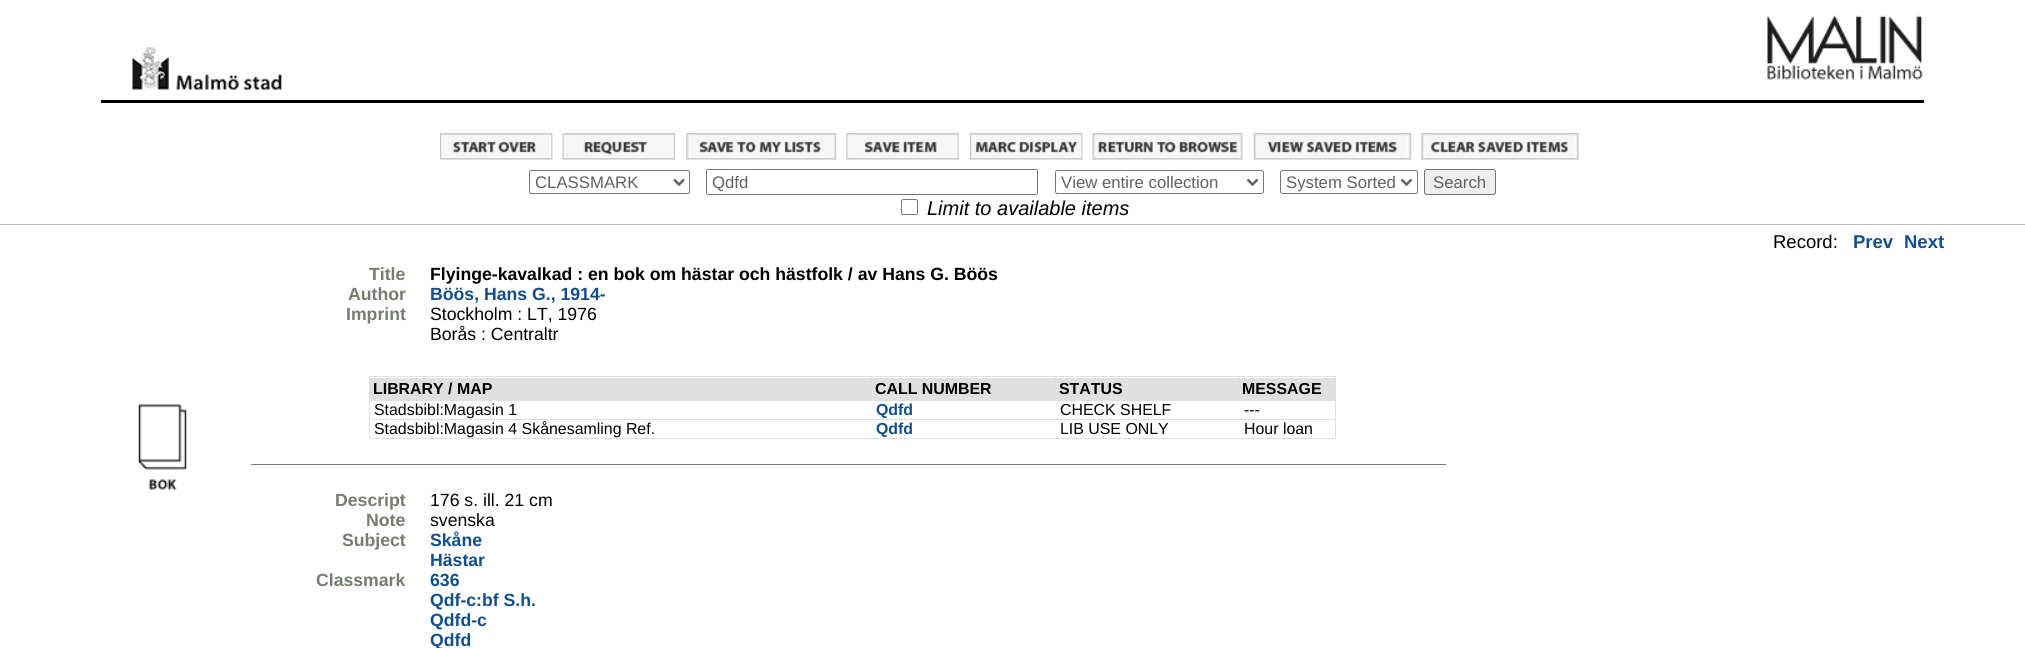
import math
import cairocffi as cairo

surface = cairo.ImageSurface(cairo.FORMAT_RGB24, 2025, 648)
ctx = cairo.Context(surface)
options = cairo.FontOptions()
options.set_hint_metrics(cairo.HINT_METRICS_OFF)
options.set_hint_style(cairo.HINT_STYLE_NONE)
ctx.set_font_options(options)
ctx.set_miter_limit(4)


def rgb(r, g, b):
    ctx.set_source_rgb(r / 255, g / 255, b / 255)


def face(family, size, italic, bold):
    ctx.select_font_face(family, cairo.FONT_SLANT_ITALIC if italic else cairo.FONT_SLANT_NORMAL, cairo.FONT_WEIGHT_BOLD if bold else cairo.FONT_WEIGHT_NORMAL)
    ctx.set_font_size(size)


def label(x, y, s):
    ctx.move_to(x, y)
    ctx.show_text(s)


def rect(x, y, w, h):
    ctx.rectangle(x, y, w, h)
    ctx.fill()


def rrect(x, y, w, h, r):
    ctx.new_sub_path()
    for i, (u, v) in enumerate([(x + w - r, y + h - r), (x + r, y + h - r), (x + r, y + r), (x + w - r, y + r)]):
        ctx.arc(u, v, r, i * math.pi / 2, (i + 1) * math.pi / 2)
    ctx.close_path()


def image(path, x, y, w, h):
    ctx.save()
    ctx.set_source_surface(cairo.ImageSurface.create_from_png(path), x, y)
    ctx.rectangle(x, y, w, h)
    ctx.fill()
    ctx.restore()


rgb(255, 255, 255)
ctx.paint()
image('image0.png', 132, 47, 150, 43)
image('image1.png', 1767, 15, 156, 65)
rgb(0, 0, 0)
rect(101, 100, 1823, 3)
image('image2.png', 440, 133, 113, 27)
image('image3.png', 562, 133, 113, 27)
image('image4.png', 686, 133, 151, 27)
image('image5.png', 846, 133, 113, 27)
image('image6.png', 970, 133, 113, 27)
image('image7.png', 1092, 133, 151, 27)
image('image8.png', 1253, 133, 159, 27)
image('image9.png', 1421, 133, 158, 27)
rgb(189, 189, 189)
rect(0, 224, 2025, 1)
rrect(529.5, 170.5, 160, 23, 2)
rgb(118, 118, 118)
ctx.set_line_width(1)
ctx.stroke()
ctx.new_path()
ctx.move_to(674, 179.5)
ctx.line_to(679, 184.5)
ctx.line_to(684, 179.5)
rgb(97, 97, 97)
ctx.set_line_width(2.5)
ctx.stroke()
face('Liberation Sans', 16.75, 0, 0)
label(535, 188, 'CLASSMARK')
rrect(706.5, 169.5, 331, 25, 2)
rgb(118, 118, 118)
ctx.set_line_width(1)
ctx.stroke()
rgb(97, 97, 97)
label(712, 188, 'Qdfd')
rrect(1055.5, 170.5, 208, 23, 2)
rgb(118, 118, 118)
ctx.stroke()
ctx.new_path()
ctx.move_to(1247.5, 179.5)
ctx.line_to(1252.5, 184.5)
ctx.line_to(1257.5, 179.5)
rgb(97, 97, 97)
ctx.set_line_width(2.5)
ctx.stroke()
label(1061, 188, 'View entire collection')
rrect(1280.5, 170.5, 137, 23, 2)
rgb(118, 118, 118)
ctx.set_line_width(1)
ctx.stroke()
ctx.new_path()
ctx.move_to(1401.5, 179.5)
ctx.line_to(1406.5, 184.5)
ctx.line_to(1411.5, 179.5)
rgb(97, 97, 97)
ctx.set_line_width(2.5)
ctx.stroke()
label(1286, 188, 'System Sorted')
rgb(239, 239, 239)
rrect(1424.5, 169.5, 71, 25, 2)
ctx.fill_preserve()
rgb(118, 118, 118)
ctx.set_line_width(1)
ctx.stroke()
rgb(97, 97, 97)
label(1433, 188, 'Search')
rrect(901.5, 199.5, 16, 15, 2)
rgb(118, 118, 118)
ctx.stroke()
face('Liberation Sans', 20, 1, 0)
rgb(0, 0, 0)
label(927, 215, 'Limit to available items')
face('Liberation Sans', 18.5, 0, 0)
label(1773, 248, 'Record:')
face('Liberation Sans', 18.5, 0, 1)
rgb(17, 79, 140)
label(1853, 248, 'Prev')
label(1904, 248, 'Next')
image('image10.png', 138, 404, 49, 86)
face('Liberation Sans', 17.65, 0, 1)
rgb(118, 124, 112)
label(369, 280, 'Title')
rgb(0, 0, 0)
label(430, 280, 'Flyinge-kavalkad : en bok om hästar och hästfolk / av Hans G. Böös')
rgb(118, 124, 112)
label(348, 300, 'Author')
rgb(17, 79, 140)
label(430, 300, 'Böös, Hans G., 1914-')
rgb(118, 124, 112)
label(346, 320, 'Imprint')
face('Liberation Sans', 17.65, 0, 0)
rgb(0, 0, 0)
label(430, 320, 'Stockholm : LT, 1976')
label(430, 340, 'Borås : Centraltr')
rgb(224, 224, 224)
rect(370, 378, 685, 22)
rect(1239, 376, 97, 1)
rect(369, 400, 967, 1)
rect(1239, 376, 1, 25)
rect(1055, 376, 185, 1)
rect(1055, 376, 1, 25)
rect(871, 376, 185, 1)
rect(871, 376, 1, 2)
rect(369, 376, 504, 1)
rect(369, 419, 967, 1)
rect(1335, 419, 1, 20)
rect(369, 438, 967, 1)
rect(369, 419, 1, 20)
rect(369, 400, 1, 20)
rect(369, 376, 1, 25)
face('Liberation Sans', 15.9, 0, 1)
rgb(0, 0, 0)
label(373, 394, 'LIBRARY / MAP')
label(875, 394, 'CALL NUMBER')
rgb(224, 224, 224)
rect(1056, 378, 183, 22)
rgb(0, 0, 0)
label(1059, 394, 'STATUS')
rgb(224, 224, 224)
rect(1240, 378, 95, 22)
rect(1335, 400, 1, 20)
rect(1335, 376, 1, 25)
rgb(0, 0, 0)
label(1242, 394, 'MESSAGE')
face('Liberation Sans', 15.9, 0, 0)
label(374, 415, 'Stadsbibl:Magasin 1')
face('Liberation Sans', 15.9, 0, 1)
rgb(17, 79, 140)
label(876, 415, 'Qdfd')
face('Liberation Sans', 15.9, 0, 0)
rgb(0, 0, 0)
label(1060, 415, 'CHECK SHELF')
label(1244, 415, '---')
label(374, 434, 'Stadsbibl:Magasin 4 Skånesamling Ref.')
face('Liberation Sans', 15.9, 0, 1)
rgb(17, 79, 140)
label(876, 434, 'Qdfd')
face('Liberation Sans', 15.9, 0, 0)
rgb(0, 0, 0)
label(1060, 434, 'LIB USE ONLY')
label(1244, 434, 'Hour loan')
rgb(118, 124, 112)
rect(251, 464, 1195, 1)
face('Liberation Sans', 17.65, 0, 1)
label(335, 506, 'Descript')
face('Liberation Sans', 17.65, 0, 0)
rgb(0, 0, 0)
label(430, 506, '176 s. ill. 21 cm')
face('Liberation Sans', 17.65, 0, 1)
rgb(118, 124, 112)
label(366, 526, 'Note')
face('Liberation Sans', 17.65, 0, 0)
rgb(0, 0, 0)
label(430, 526, 'svenska')
face('Liberation Sans', 17.65, 0, 1)
rgb(118, 124, 112)
label(342, 546, 'Subject')
rgb(17, 79, 140)
label(430, 546, 'Skåne')
label(430, 566, 'Hästar')
rgb(118, 124, 112)
label(316, 586, 'Classmark')
rgb(17, 79, 140)
label(430, 586, '636')
label(430, 606, 'Qdf-c:bf S.h.')
label(430, 626, 'Qdfd-c')
label(430, 646, 'Qdfd')
surface.write_to_png('render.png')
